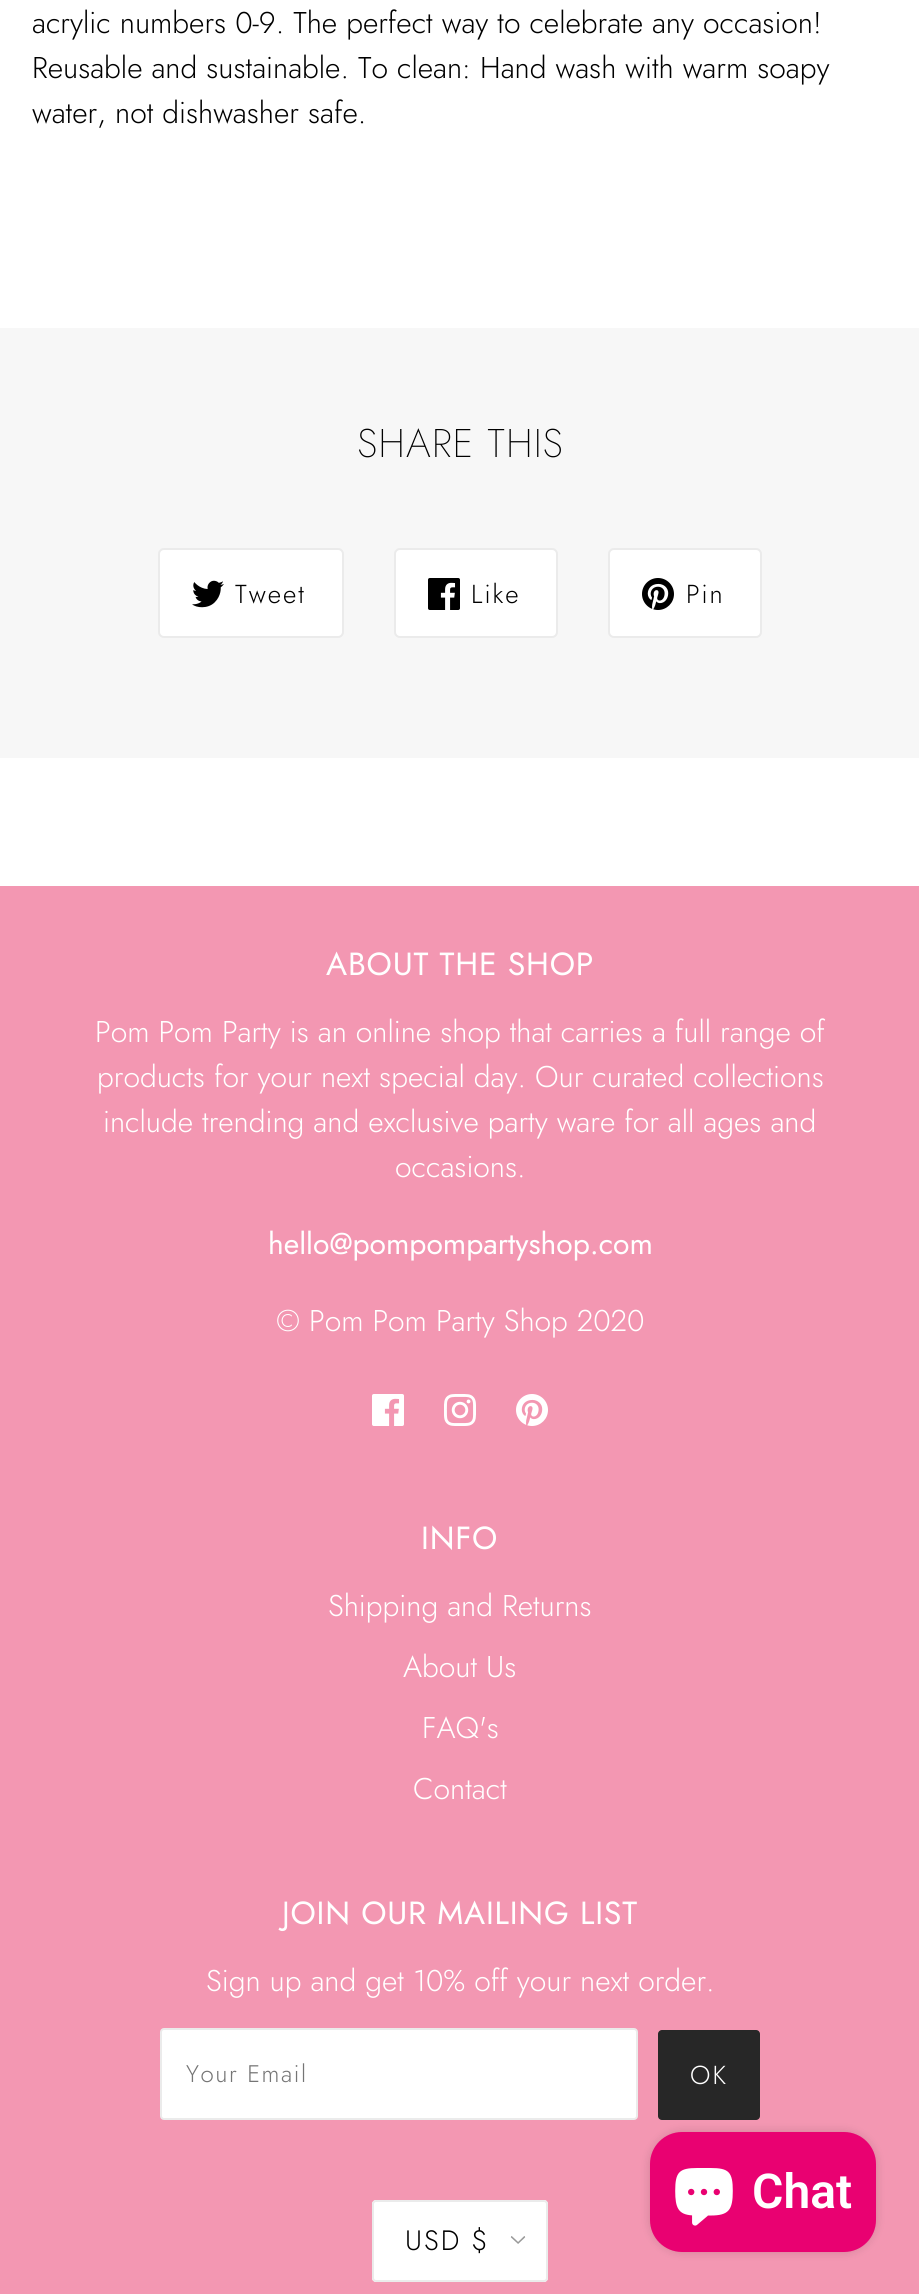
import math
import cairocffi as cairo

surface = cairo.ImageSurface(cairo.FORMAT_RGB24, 919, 2294)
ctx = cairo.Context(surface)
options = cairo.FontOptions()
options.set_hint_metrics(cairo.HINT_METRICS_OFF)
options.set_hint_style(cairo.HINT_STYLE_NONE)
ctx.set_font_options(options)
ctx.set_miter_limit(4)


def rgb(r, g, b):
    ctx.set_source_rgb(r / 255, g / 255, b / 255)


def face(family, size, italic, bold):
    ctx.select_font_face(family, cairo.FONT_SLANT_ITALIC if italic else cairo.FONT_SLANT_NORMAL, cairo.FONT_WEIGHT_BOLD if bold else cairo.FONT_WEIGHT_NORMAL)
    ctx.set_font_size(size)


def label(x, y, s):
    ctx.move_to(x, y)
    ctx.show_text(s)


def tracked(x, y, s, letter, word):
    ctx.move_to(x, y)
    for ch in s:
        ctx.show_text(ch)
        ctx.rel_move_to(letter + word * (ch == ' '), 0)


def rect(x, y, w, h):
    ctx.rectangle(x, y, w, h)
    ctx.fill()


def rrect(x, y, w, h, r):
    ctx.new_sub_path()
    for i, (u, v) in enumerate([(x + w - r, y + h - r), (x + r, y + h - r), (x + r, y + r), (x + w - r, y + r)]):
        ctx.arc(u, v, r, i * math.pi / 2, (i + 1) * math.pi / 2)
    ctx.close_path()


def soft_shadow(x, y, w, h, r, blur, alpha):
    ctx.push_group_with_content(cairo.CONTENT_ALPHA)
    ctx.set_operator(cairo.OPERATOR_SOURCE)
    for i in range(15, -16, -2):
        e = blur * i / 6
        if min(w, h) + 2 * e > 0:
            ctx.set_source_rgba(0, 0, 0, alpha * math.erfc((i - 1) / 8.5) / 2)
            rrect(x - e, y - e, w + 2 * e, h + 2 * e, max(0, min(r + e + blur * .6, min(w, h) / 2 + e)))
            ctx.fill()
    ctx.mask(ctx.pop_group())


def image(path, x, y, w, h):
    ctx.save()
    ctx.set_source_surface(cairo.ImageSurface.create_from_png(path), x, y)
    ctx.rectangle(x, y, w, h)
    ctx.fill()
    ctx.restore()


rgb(255, 255, 255)
ctx.paint()
face('Jost Light', 30, 0, 0)
rgb(0, 0, 0)
label(32, 33, 'acrylic numbers 0-9. The perfect way to celebrate any occasion!')
label(32, 78, 'Reusable and sustainable. To clean: Hand wash with warm soapy')
label(32, 123, 'water, not dishwasher safe.')
rgb(247, 247, 247)
rect(0, 328, 919, 430)
face('Jost ExtraLight', 40, 0, 0)
rgb(0, 0, 0)
tracked(357, 457, 'SHARE THIS', 1, 0)
rgb(255, 255, 255)
rrect(159, 549, 184, 88, 5)
ctx.fill_preserve()
rgb(235, 235, 235)
ctx.stroke()
image('image0.png', 192, 580, 32, 28)
face('Jost Light', 26, 0, 0)
rgb(0, 0, 0)
tracked(235, 603, 'Tweet', 2, 0)
rgb(255, 255, 255)
rrect(395, 549, 162, 88, 5)
ctx.fill_preserve()
rgb(235, 235, 235)
ctx.stroke()
image('image1.png', 428, 578, 32, 32)
rgb(0, 0, 0)
tracked(471, 603, 'Like', 2, 0)
rgb(255, 255, 255)
rrect(609, 549, 152, 88, 5)
ctx.fill_preserve()
rgb(235, 235, 235)
ctx.stroke()
image('image2.png', 642, 578, 32, 32)
rgb(0, 0, 0)
tracked(686, 603, 'Pin', 2, 0)
rgb(243, 151, 178)
rect(0, 886, 919, 1408)
face('Jost', 32, 0, 0)
rgb(255, 255, 255)
tracked(326, 975, 'ABOUT THE SHOP', 0.8, 0)
face('Jost Light', 30, 0, 0)
label(95, 1042, 'Pom Pom Party is an online shop that carries a full range of')
label(97, 1087, 'products for your next special day. Our curated collections')
label(103, 1132, 'include trending and exclusive party ware for all ages and')
label(395, 1177, 'occasions.')
face('Jost', 30, 0, 0)
label(268, 1254, 'hello@pompompartyshop.com')
face('Jost Light', 30, 0, 0)
label(276, 1331, '© Pom Pom Party Shop 2020')
image('image3.png', 372, 1394, 32, 32)
image('image4.png', 444, 1394, 32, 32)
image('image5.png', 516, 1394, 32, 32)
face('Jost', 32, 0, 0)
tracked(421, 1549, 'INFO', 0.8, 0)
face('Jost Light', 30, 0, 0)
label(328, 1616, 'Shipping and Returns')
label(403, 1677, 'About Us')
label(422, 1738, 'FAQ\'s')
label(413, 1799, 'Contact')
face('Jost', 32, 0, 0)
tracked(282, 1924, 'JOIN OUR MAILING LIST', 0.8, 0)
face('Jost Light', 30, 0, 0)
label(206, 1991, 'Sign up and get 10% off your next order.')
rrect(161, 2029, 476, 90, 3)
ctx.fill_preserve()
rgb(235, 235, 235)
ctx.stroke()
face('Jost Light', 24, 0, 0)
rgb(117, 117, 117)
tracked(186, 2082, 'Your Email', 1.6, 0)
rgb(39, 39, 39)
rrect(658, 2030, 102, 90, 4)
ctx.fill()
face('Jost Light', 26, 0, 0)
rgb(255, 255, 255)
tracked(690, 2084, 'OK', 2, 0)
rrect(372, 2200, 176, 82, 4)
ctx.fill()
image('image6.png', 510, 2236, 16, 8)
rrect(373, 2201, 174, 80, 3)
rgb(235, 235, 235)
ctx.stroke()
face('Jost Light', 28, 0, 0)
rgb(0, 0, 0)
tracked(405, 2250, 'USD $', 2, 0)
rgb(0, 0, 0)
soft_shadow(650, 2132, 226, 120, 32, 5, 0.15)
rgb(233, 1, 113)
rrect(650, 2132, 226, 120, 32)
ctx.fill()
image('image7.png', 675, 2168, 58, 58)
face('Roboto SemiBold', 48, 0, 0)
rgb(255, 255, 255)
label(752, 2208, 'Chat')
surface.write_to_png('render.png')
